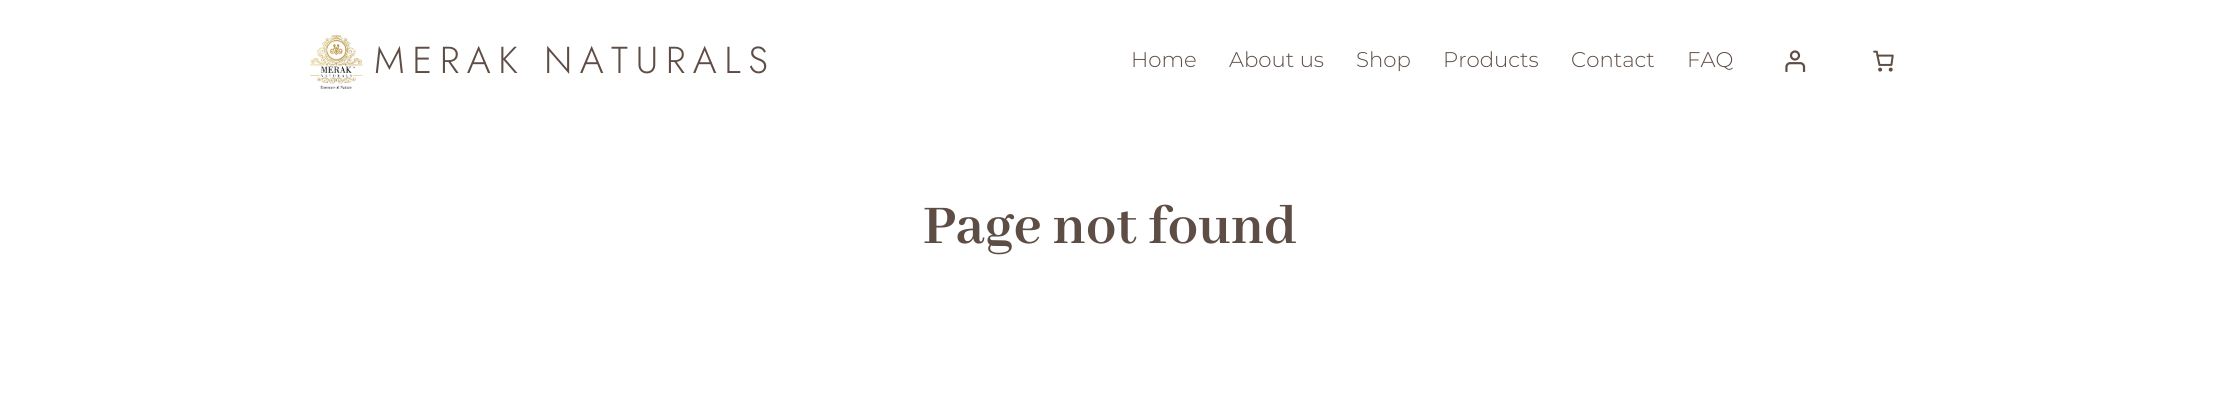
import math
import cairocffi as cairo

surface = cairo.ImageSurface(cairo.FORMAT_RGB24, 2219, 408)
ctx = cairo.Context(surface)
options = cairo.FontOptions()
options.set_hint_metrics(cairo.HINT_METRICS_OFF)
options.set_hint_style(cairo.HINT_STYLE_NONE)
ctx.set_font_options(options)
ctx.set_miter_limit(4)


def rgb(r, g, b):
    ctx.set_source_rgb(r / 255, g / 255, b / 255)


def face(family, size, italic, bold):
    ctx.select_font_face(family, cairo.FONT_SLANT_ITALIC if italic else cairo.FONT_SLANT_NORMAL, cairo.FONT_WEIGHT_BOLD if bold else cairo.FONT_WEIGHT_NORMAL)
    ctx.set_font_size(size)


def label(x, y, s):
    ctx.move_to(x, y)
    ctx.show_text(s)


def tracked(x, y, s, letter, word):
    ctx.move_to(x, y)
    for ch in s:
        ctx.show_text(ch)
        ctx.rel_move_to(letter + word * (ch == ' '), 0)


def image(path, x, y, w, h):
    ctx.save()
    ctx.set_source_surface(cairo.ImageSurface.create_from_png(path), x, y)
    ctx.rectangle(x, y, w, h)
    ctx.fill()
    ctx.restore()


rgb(255, 255, 255)
ctx.paint()
image('image0.png', 310, 34, 53, 55)
face('Jost Light', 37.5, 0, 0)
rgb(94, 77, 69)
tracked(374, 73, 'MERAK NATURALS', 7.5, 0)
face('Montserrat Light', 21.25, 0, 0)
label(1131, 67, 'Home')
label(1229, 67, 'About us')
label(1356, 67, 'Shop')
label(1443, 67, 'Products')
label(1571, 67, 'Contact')
label(1687, 67, 'FAQ')
image('image1.png', 1785, 50, 21, 22)
image('image2.png', 1873, 50, 21, 22)
face('Abhaya Libre', 60, 0, 1)
label(923, 243, 'Page not found')
surface.write_to_png('render.png')
